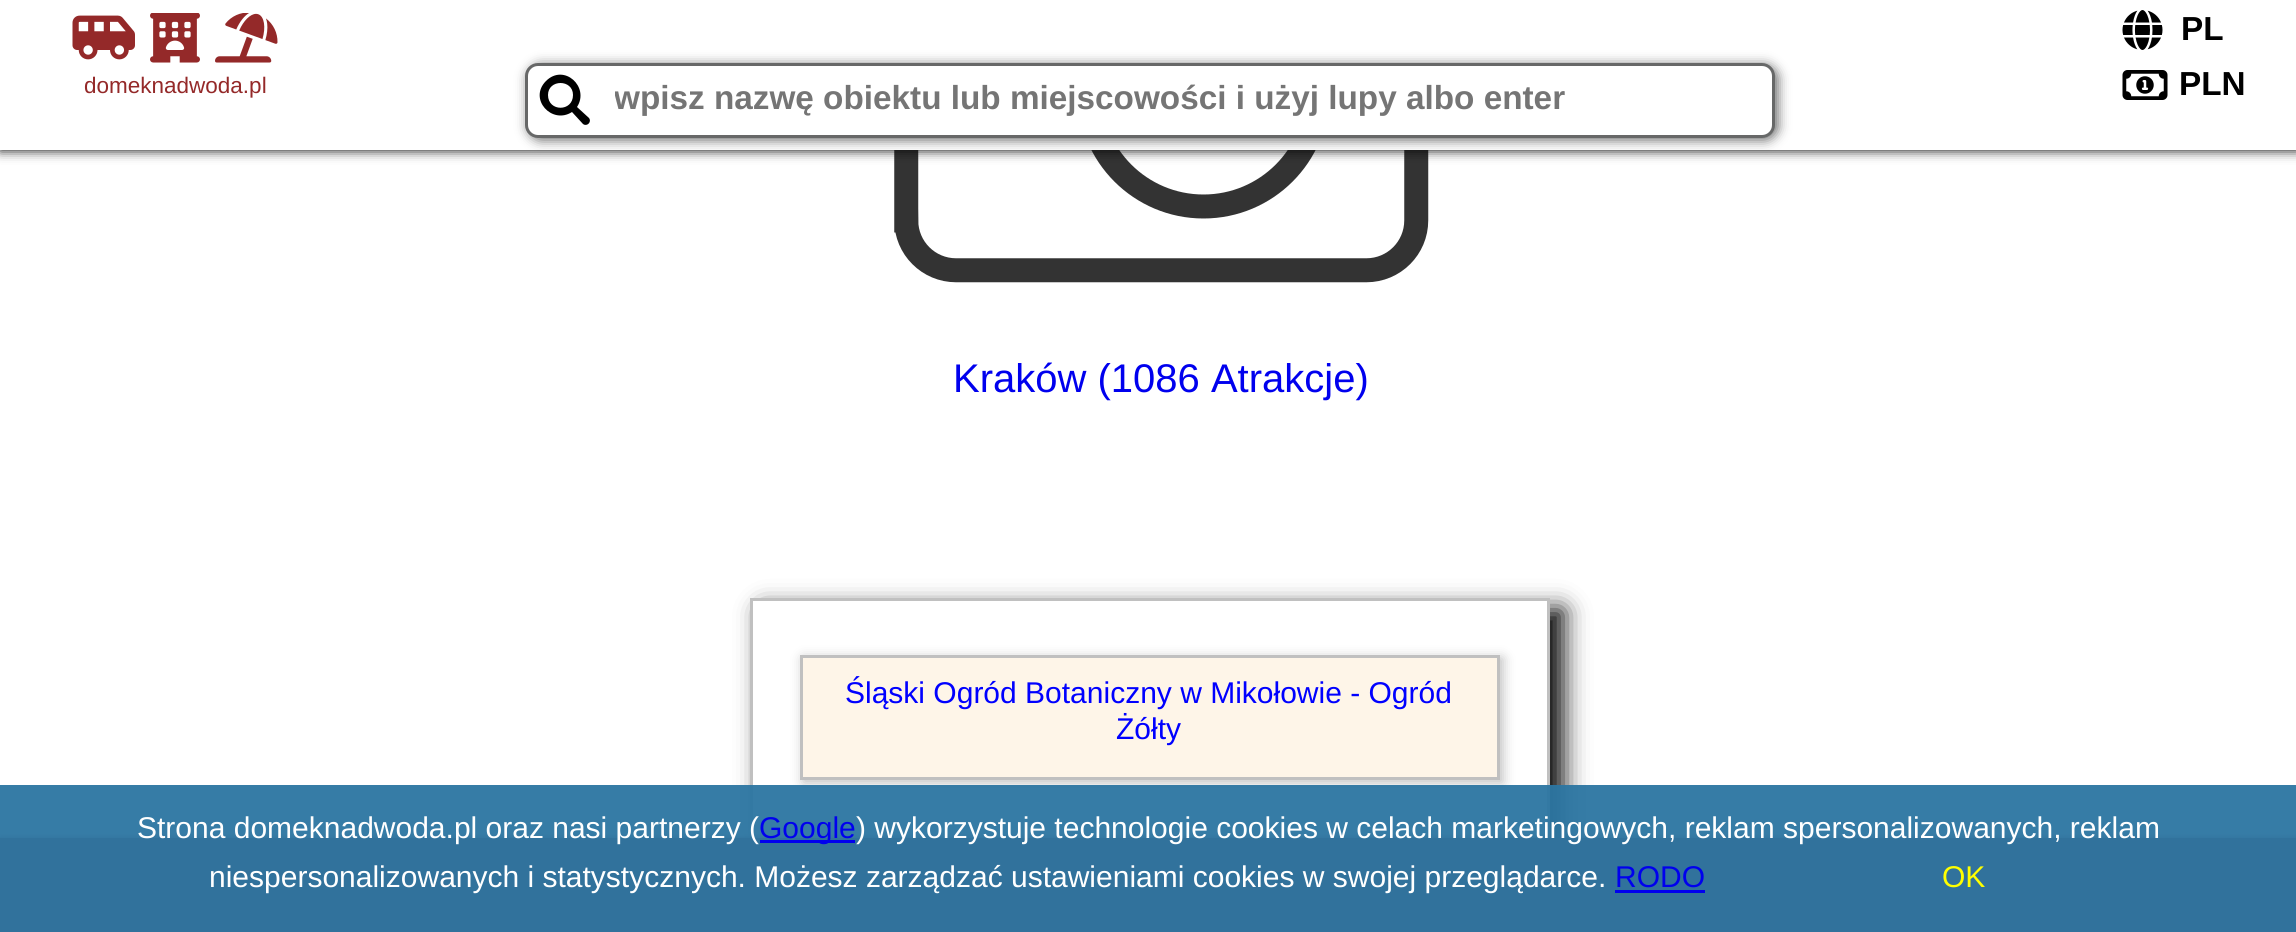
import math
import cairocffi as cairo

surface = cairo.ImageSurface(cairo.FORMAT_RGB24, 2296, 932)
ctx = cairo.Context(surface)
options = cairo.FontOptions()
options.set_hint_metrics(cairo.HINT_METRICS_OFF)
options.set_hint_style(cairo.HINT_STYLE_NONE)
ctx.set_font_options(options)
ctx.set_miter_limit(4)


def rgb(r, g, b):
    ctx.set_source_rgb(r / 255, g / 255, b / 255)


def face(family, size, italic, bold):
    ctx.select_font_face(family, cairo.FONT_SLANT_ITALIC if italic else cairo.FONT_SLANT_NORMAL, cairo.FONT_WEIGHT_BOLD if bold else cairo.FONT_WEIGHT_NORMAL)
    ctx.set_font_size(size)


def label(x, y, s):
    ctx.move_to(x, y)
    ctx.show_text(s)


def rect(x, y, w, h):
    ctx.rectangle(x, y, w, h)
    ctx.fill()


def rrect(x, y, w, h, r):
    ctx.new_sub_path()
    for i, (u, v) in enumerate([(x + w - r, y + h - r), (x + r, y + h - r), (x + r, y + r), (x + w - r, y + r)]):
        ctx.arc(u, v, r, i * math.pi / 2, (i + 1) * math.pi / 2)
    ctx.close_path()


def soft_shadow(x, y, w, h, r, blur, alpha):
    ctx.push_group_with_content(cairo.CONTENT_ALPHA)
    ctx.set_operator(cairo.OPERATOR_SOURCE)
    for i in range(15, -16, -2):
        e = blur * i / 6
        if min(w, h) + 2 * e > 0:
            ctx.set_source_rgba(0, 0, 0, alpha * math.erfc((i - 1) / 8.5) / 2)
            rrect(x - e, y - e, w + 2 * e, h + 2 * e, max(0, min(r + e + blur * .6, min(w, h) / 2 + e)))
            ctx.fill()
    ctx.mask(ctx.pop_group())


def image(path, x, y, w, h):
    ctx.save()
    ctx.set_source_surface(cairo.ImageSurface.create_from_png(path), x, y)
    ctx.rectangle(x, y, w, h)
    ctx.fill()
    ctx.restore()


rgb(255, 255, 255)
ctx.paint()
image('image5.png', 894, 150, 535, 133)
rgb(0, 0, 0)
soft_shadow(0, 0, 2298, 150, 0, 6, 1)
rgb(255, 255, 255)
rect(0, 0, 2296, 150)
image('image0.png', 2122, 10, 41, 40)
face('Liberation Sans', 33.3, 0, 1)
rgb(0, 0, 0)
label(2181, 40, 'PL')
image('image1.png', 72, 15, 63, 45)
image('image2.png', 150, 13, 50, 50)
image('image3.png', 215, 13, 63, 50)
face('Liberation Sans', 22.5, 0, 0)
rgb(148, 41, 41)
label(84, 93, 'domeknadwoda.pl')
rgb(103, 104, 104)
soft_shadow(528, 65, 1250, 75, 13, 6, 1)
rgb(255, 255, 255)
rrect(526.5, 64.5, 1247, 72, 11.5)
ctx.fill_preserve()
rgb(103, 104, 104)
ctx.set_line_width(3)
ctx.stroke()
rgb(0, 0, 0)
ctx.new_path()
ctx.move_to(589, 118)
ctx.line_to(577, 107)
ctx.curve_to(590, 87, 564, 63, 546, 81)
ctx.curve_to(528, 99, 552, 125, 572, 112)
ctx.line_to(583, 124)
ctx.curve_to(587, 127, 592, 122, 589, 118)
ctx.close_path()
ctx.move_to(548, 95)
ctx.curve_to(548, 79, 573, 79, 573, 95)
ctx.curve_to(573, 112, 548, 112, 548, 95)
ctx.close_path()
ctx.fill()
ctx.save()
ctx.rectangle(615, 80, 1085, 38)
ctx.clip()
face('Liberation Sans', 33.3, 0, 1)
rgb(117, 117, 117)
label(614, 109, 'wpisz nazwę obiektu lub miejscowości i użyj lupy albo enter')
ctx.restore()
image('image4.png', 2122, 70, 46, 30)
face('Liberation Sans', 33.3, 0, 1)
label(2179, 95, 'PLN')
face('Liberation Sans', 40, 0, 0)
rgb(0, 0, 238)
label(953, 392, 'Kraków (1086 Atrakcje)')
rgb(0, 0, 0)
soft_shadow(763, 610, 800, 310, 0, 12.5, 1)
rgb(255, 255, 255)
rect(753, 601, 794, 237)
ctx.rectangle(751.5, 599.5, 797, 307)
rgb(192, 192, 192)
ctx.stroke()
rgb(192, 192, 192)
soft_shadow(803, 658, 700, 125, 0, 6, 1)
rgb(254, 245, 232)
ctx.rectangle(801.5, 656.5, 697, 122)
ctx.fill_preserve()
rgb(192, 192, 192)
ctx.stroke()
face('Liberation Sans', 30, 0, 0)
rgb(0, 0, 255)
label(845, 703, 'Śląski Ogród Botaniczny w Mikołowie - Ogród')
label(1116, 739, 'Żółty')
rgb(148, 41, 41)
soft_shadow(0, 838, 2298, 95, 0, 2.5, 1)
rgb(148, 41, 41)
rect(0, 838, 2296, 94)
ctx.set_source_rgba(0.176, 0.463, 0.635, 0.95)
rect(0, 785, 2296, 147)
rgb(255, 255, 255)
label(137, 838, 'Strona domeknadwoda.pl oraz nasi partnerzy (')
rgb(0, 0, 238)
rect(760, 840, 95, 3)
label(759, 838, 'Google')
rgb(255, 255, 255)
label(856, 838, ') wykorzystuje technologie cookies w celach marketingowych, reklam spersonalizowanych, reklam')
label(209, 887, 'niespersonalizowanych i statystycznych. Możesz zarządzać ustawieniami cookies w swojej przeglądarce.')
rgb(0, 0, 238)
label(1615, 887, 'RODO')
rect(1615, 890, 90, 3)
rgb(255, 255, 0)
label(1942, 887, 'OK')
surface.write_to_png('render.png')
